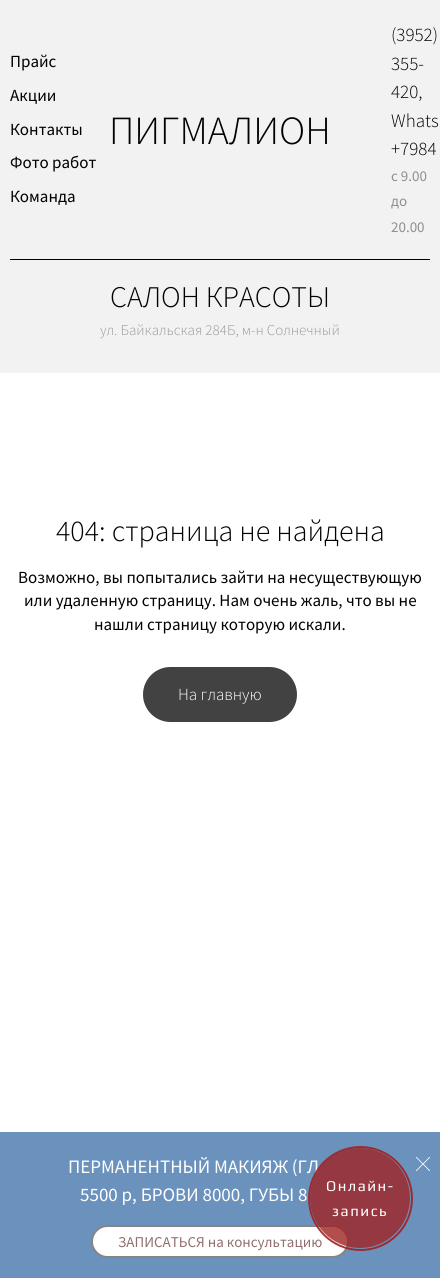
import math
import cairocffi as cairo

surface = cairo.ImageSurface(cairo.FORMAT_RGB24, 440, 1278)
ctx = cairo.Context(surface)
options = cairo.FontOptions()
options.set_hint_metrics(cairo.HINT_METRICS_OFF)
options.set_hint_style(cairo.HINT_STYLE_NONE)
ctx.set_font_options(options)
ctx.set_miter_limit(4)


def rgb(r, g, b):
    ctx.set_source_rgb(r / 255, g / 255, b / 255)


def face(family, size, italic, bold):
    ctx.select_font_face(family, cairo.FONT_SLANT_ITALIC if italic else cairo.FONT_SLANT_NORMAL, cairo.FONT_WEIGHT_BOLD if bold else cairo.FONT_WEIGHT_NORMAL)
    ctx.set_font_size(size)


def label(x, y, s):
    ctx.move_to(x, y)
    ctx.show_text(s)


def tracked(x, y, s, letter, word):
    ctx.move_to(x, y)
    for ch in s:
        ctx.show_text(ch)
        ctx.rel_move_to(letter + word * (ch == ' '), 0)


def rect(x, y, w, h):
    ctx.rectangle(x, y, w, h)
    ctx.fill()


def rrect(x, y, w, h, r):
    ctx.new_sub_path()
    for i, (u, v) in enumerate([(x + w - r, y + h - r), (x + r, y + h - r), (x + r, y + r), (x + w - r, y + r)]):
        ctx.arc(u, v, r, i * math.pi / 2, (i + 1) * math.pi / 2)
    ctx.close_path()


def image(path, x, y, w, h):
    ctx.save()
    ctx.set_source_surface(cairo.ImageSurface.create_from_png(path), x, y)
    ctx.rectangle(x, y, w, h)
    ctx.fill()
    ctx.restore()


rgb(255, 255, 255)
ctx.paint()
rgb(242, 242, 242)
rect(0, 0, 440, 373)
face('Source Sans Pro', 17, 0, 0)
rgb(0, 0, 0)
label(10, 67, 'Прайс')
label(10, 101, 'Акции')
label(10, 135, 'Контакты')
label(10, 168, 'Фото работ')
label(10, 202, 'Команда')
face('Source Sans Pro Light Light', 40, 0, 0)
label(109, 144, 'ПИГМАЛИОН')
face('Source Sans Pro Light Light', 19, 0, 0)
label(391, 41, '(3952)')
label(391, 70, '355-')
label(391, 98, '420,')
label(391, 127, 'Whats')
label(391, 155, '+7984')
face('Source Sans Pro', 15, 0, 0)
rgb(143, 143, 143)
label(391, 181, 'с 9.00')
label(391, 206, 'до')
label(391, 232, '20.00')
rgb(0, 0, 0)
rect(10, 259, 420, 1)
face('Source Sans Pro Light Light', 30, 0, 0)
label(110, 307, 'САЛОН КРАСОТЫ')
face('Source Sans Pro Light Light', 15, 0, 0)
rgb(153, 153, 153)
label(100, 335, 'ул. Байкальская 284Б, м-н Солнечный')
rgb(107, 146, 189)
rect(0, 1132, 440, 146)
face('Source Sans Pro', 19, 0, 0)
rgb(255, 255, 255)
label(68, 1173, 'ПЕРМАНЕНТНЫЙ МАКИЯЖ (ГЛ')
label(80, 1201, '5500 р, БРОВИ 8000, ГУБЫ 8')
image('image0.png', 416, 1157, 14, 14)
rrect(92, 1226, 256, 31, 15.5)
ctx.fill_preserve()
rgb(133, 133, 133)
ctx.stroke()
face('Source Sans Pro', 15, 0, 0)
rgb(145, 111, 111)
label(118, 1247, 'ЗАПИСАТЬСЯ на консультацию')
face('Source Sans Pro Light Light', 30, 0, 0)
rgb(0, 0, 0)
label(56, 541, '404: страница не найдена')
face('Source Sans Pro', 17, 0, 0)
label(18, 583, 'Возможно, вы попытались зайти на несуществующую')
label(24, 606, 'или удаленную страницу. Нам очень жаль, что вы не')
label(94, 630, 'нашли страницу которую искали.')
rgb(66, 66, 66)
rrect(143, 667, 154, 55, 27.5)
ctx.fill()
face('Source Sans Pro Light Light', 17, 0, 0)
rgb(255, 255, 255)
label(178, 700, 'На главную')
ctx.set_source_rgba(0.627, 0.133, 0.133, 0.8)
ctx.new_path()
ctx.arc(360, 1198, 50, 0, 2 * math.pi)
ctx.fill()
ctx.arc(360.5, 1198.5, 51.5, 0, 2 * math.pi)
ctx.set_source_rgba(0.627, 0.133, 0.133, 0.9)
ctx.stroke()
face('Play', 15, 0, 0)
rgb(255, 255, 255)
tracked(326, 1191, 'Онлайн-', 1.5, 0)
tracked(332, 1216, 'запись', 1.5, 0)
surface.write_to_png('render.png')
